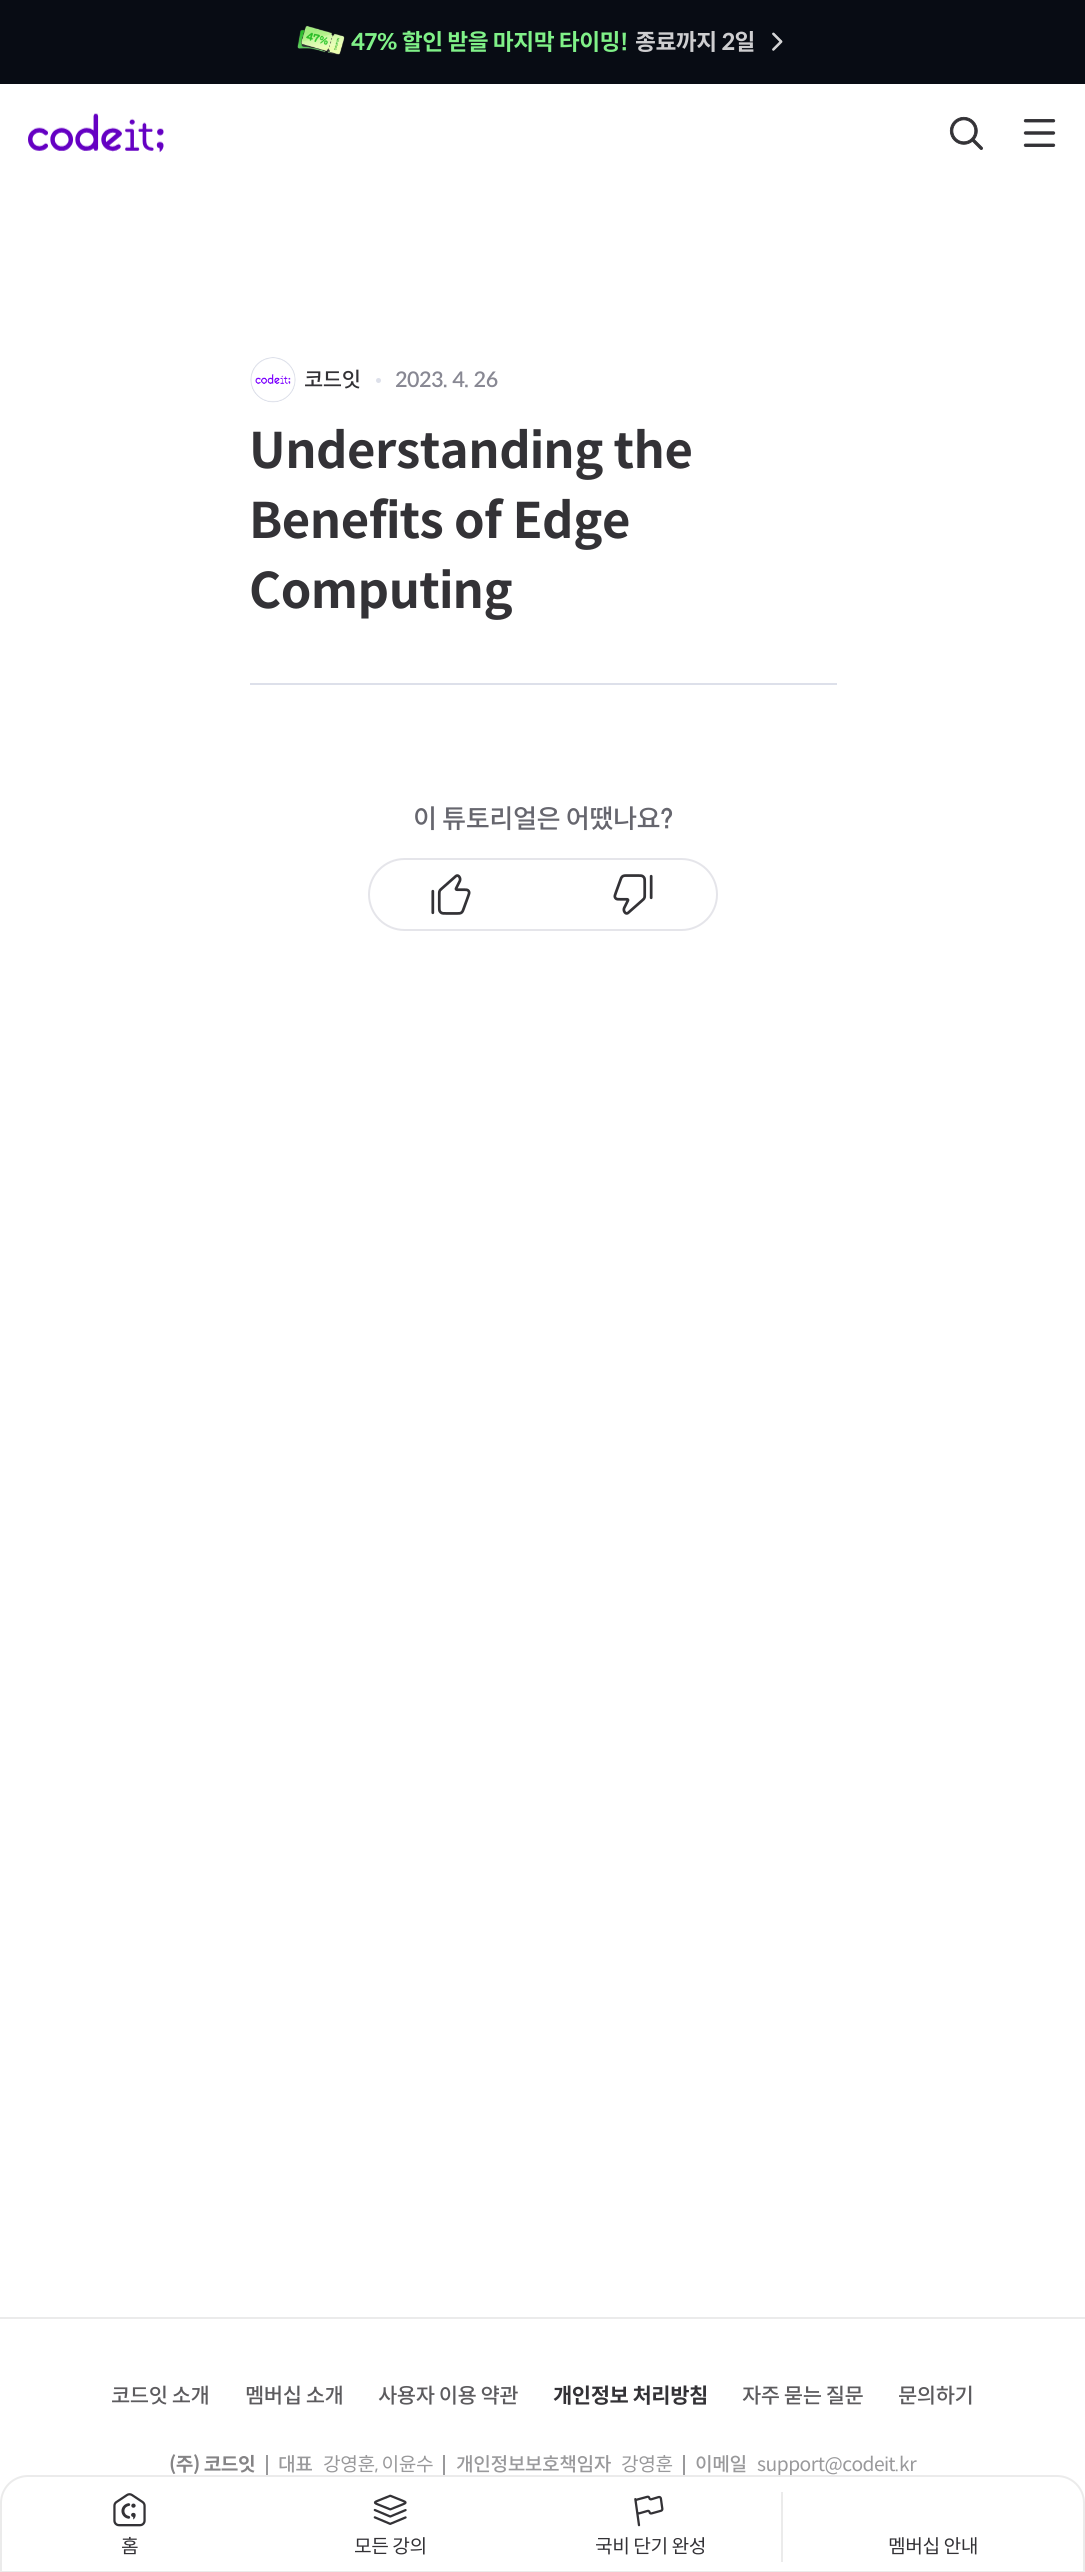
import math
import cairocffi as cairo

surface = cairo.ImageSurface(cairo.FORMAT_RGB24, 1085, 2572)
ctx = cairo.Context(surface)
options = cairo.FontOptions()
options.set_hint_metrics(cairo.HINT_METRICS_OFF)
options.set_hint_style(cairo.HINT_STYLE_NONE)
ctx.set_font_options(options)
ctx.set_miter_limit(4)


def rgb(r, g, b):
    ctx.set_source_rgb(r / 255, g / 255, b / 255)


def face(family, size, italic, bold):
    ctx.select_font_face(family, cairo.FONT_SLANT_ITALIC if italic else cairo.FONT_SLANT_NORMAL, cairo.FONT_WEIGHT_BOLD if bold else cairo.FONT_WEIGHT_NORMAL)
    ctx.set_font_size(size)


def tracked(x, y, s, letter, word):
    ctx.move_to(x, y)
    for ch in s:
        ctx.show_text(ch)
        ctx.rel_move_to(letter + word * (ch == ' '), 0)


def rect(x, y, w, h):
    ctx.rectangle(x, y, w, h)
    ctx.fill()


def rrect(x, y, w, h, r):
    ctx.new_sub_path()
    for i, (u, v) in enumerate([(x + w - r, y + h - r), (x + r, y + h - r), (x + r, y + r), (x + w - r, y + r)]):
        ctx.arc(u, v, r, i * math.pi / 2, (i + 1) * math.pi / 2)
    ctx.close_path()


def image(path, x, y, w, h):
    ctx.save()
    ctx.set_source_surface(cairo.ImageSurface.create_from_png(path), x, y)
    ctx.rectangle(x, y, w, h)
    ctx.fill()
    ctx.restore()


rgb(255, 255, 255)
ctx.paint()
rgb(8, 12, 20)
rect(0, 0, 1085, 84)
image('image0.png', 297, 25, 48, 30)
face('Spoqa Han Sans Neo', 22.75, 0, 1)
rgb(128, 241, 136)
tracked(351, 50, '47% 할인 받을 마지막 타이밍!', -0.5, 0)
rgb(206, 206, 208)
tracked(635, 50, '종료까지 2일', -0.5, 0)
image('image1.png', 772, 32, 11, 19)
image('image2.png', 28, 113, 136, 40)
image('image3.png', 949, 116, 34, 34)
image('image4.png', 1023, 119, 33, 28)
rgb(221, 224, 234)
rect(250, 683, 587, 2)
image('image5.png', 250, 357, 46, 46)
face('Spoqa Han Sans Neo Medium', 21, 0, 0)
rgb(51, 50, 54)
tracked(304, 387, '코드잇', -0.5, 0)
rgb(221, 224, 234)
ctx.new_path()
ctx.arc(378.5, 380.5, 2.5, 0, 2 * math.pi)
ctx.fill()
rgb(136, 136, 147)
tracked(395, 387, '2023. 4. 26', -0.5, 0)
face('Spoqa Han Sans Neo', 49, 0, 1)
rgb(51, 50, 54)
tracked(249, 468, 'Understanding the', -0.5, 0)
tracked(249, 538, 'Benefits of Edge', -0.5, 0)
tracked(249, 608, 'Computing', -0.5, 0)
face('Spoqa Han Sans Neo Medium', 26.25, 0, 0)
rgb(102, 102, 110)
tracked(413, 828, '이 튜토리얼은 어땠나요?', -0.5, 0)
rrect(369, 859, 348, 71, 35.5)
rgb(229, 229, 234)
ctx.stroke()
image('image6.png', 431, 874, 40, 41)
image('image7.png', 613, 874, 40, 41)
rgb(235, 235, 235)
rect(0, 2317, 1085, 2)
face('Spoqa Han Sans Neo Medium', 21, 0, 0)
rgb(92, 91, 94)
tracked(111, 2403, '코드잇 소개', -0.5, 0)
tracked(245, 2403, '멤버십 소개', -0.5, 0)
tracked(378, 2403, '사용자 이용 약관', -0.5, 0)
face('Spoqa Han Sans Neo', 21, 0, 1)
rgb(51, 50, 54)
tracked(553, 2403, '개인정보 처리방침', -0.5, 0)
face('Spoqa Han Sans Neo Medium', 21, 0, 0)
rgb(92, 91, 94)
tracked(742, 2403, '자주 묻는 질문', -0.5, 0)
tracked(898, 2403, '문의하기', -0.5, 0)
face('Spoqa Han Sans Neo', 19.25, 0, 1)
rgb(133, 132, 134)
tracked(169, 2471, '(주) 코드잇', -0.5, 0)
rgb(153, 153, 155)
rect(266, 2455, 2, 20)
face('Spoqa Han Sans Neo Medium', 19.25, 0, 0)
tracked(278, 2471, '대표', -0.5, 0)
face('Spoqa Han Sans Neo', 19.25, 0, 0)
tracked(323, 2471, '강영훈, 이윤수', -0.5, 0)
rect(443, 2455, 2, 20)
face('Spoqa Han Sans Neo Medium', 19.25, 0, 0)
tracked(456, 2471, '개인정보보호책임자', -0.5, 0)
face('Spoqa Han Sans Neo', 19.25, 0, 0)
tracked(621, 2471, '강영훈', -0.5, 0)
rect(683, 2455, 2, 20)
face('Spoqa Han Sans Neo Medium', 19.25, 0, 0)
tracked(695, 2471, '이메일', -0.5, 0)
face('Spoqa Han Sans Neo', 19.25, 0, 0)
tracked(757, 2471, 'support@codeit.kr', -0.5, 0)
rgb(255, 255, 255)
ctx.new_path()
ctx.move_to(28, 2476)
ctx.line_to(1057, 2476)
ctx.curve_to(1072, 2476, 1084, 2488, 1084, 2503)
ctx.line_to(1084, 2572)
ctx.line_to(1, 2572)
ctx.line_to(1, 2503)
ctx.curve_to(1, 2488, 13, 2476, 28, 2476)
ctx.close_path()
ctx.fill_preserve()
rgb(235, 235, 235)
ctx.stroke()
image('image8.png', 113, 2493, 33, 34)
rgb(51, 50, 54)
tracked(121, 2553, '홈', -0.5, 0)
image('image9.png', 373, 2494, 34, 31)
tracked(354, 2553, '모든 강의', -0.5, 0)
image('image10.png', 634, 2495, 30, 32)
tracked(595, 2553, '국비 단기 완성', -0.5, 0)
rgb(235, 235, 235)
rect(781, 2492, 2, 70)
rgb(51, 50, 54)
tracked(888, 2553, '멤버십 안내', -0.5, 0)
surface.write_to_png('render.png')
